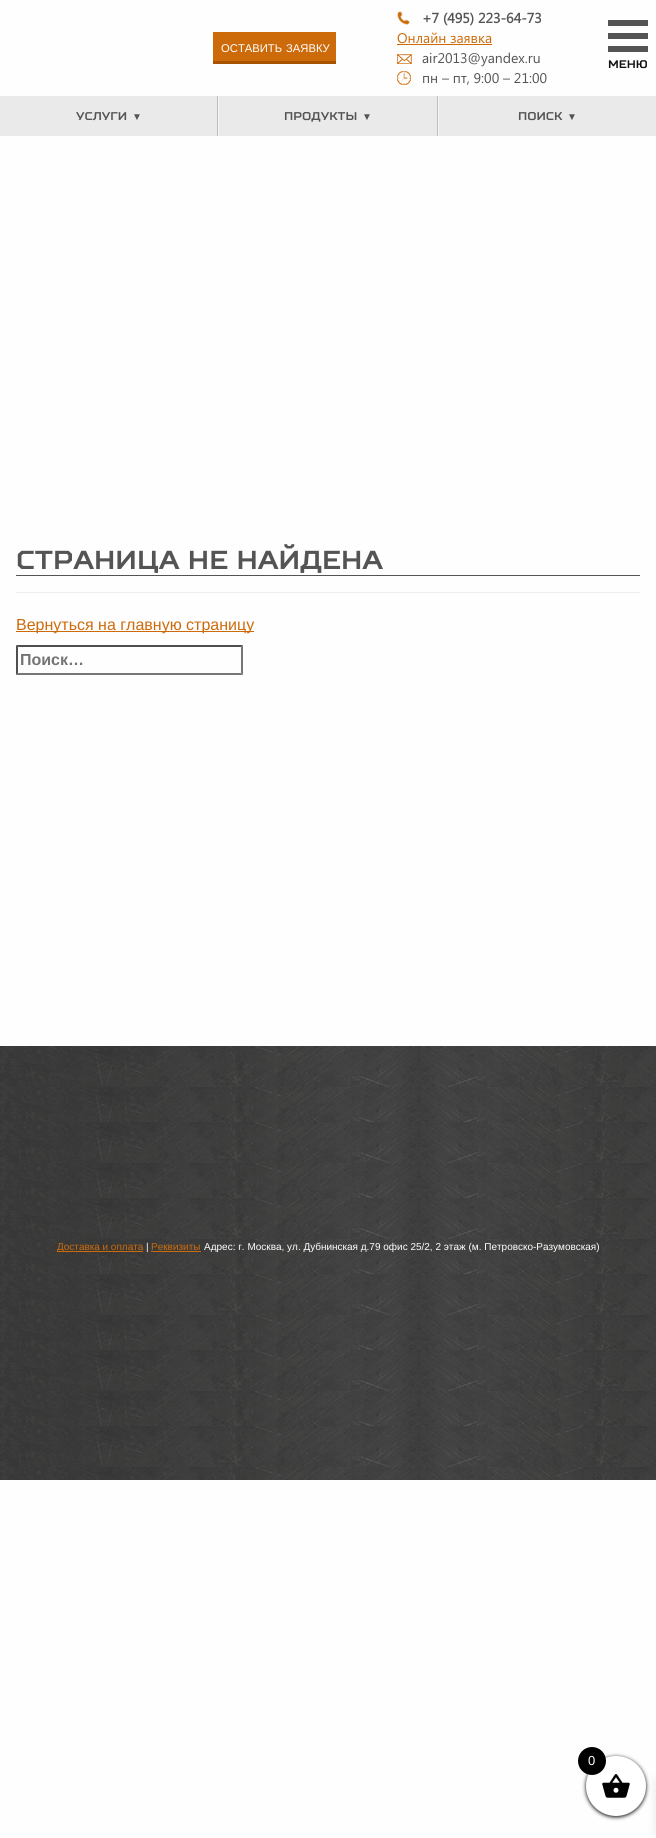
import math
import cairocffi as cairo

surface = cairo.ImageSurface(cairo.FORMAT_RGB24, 656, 1838)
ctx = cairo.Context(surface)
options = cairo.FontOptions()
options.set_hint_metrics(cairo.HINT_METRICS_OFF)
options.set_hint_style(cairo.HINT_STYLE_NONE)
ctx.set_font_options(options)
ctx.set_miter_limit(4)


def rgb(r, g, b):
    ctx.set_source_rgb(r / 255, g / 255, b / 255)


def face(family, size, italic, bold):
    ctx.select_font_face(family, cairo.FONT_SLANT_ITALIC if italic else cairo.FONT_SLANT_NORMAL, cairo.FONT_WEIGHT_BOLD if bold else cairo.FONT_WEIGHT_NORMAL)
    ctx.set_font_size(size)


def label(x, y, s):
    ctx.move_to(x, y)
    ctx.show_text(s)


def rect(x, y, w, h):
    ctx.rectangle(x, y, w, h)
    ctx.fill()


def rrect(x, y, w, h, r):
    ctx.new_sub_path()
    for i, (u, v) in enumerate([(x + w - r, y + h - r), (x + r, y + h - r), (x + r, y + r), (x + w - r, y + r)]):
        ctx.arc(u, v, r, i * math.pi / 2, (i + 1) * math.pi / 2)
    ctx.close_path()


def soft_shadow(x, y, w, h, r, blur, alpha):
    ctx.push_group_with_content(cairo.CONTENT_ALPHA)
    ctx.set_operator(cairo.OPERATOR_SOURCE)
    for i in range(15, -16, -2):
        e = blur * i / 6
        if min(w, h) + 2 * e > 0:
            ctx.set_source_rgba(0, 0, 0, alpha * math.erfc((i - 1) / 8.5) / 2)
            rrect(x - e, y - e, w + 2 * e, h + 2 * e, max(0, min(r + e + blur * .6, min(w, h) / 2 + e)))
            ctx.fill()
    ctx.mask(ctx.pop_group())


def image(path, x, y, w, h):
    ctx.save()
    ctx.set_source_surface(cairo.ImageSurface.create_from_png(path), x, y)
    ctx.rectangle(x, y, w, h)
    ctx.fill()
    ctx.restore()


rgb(254, 254, 254)
ctx.paint()
rgb(205, 107, 11)
rect(213, 32, 123, 29)
rgb(168, 83, 0)
rect(213, 61, 123, 3)
face('Liberation Sans', 11.25, 0, 0)
rgb(255, 255, 255)
label(221, 52, 'ОСТАВИТЬ')
label(286, 52, 'ЗАЯВКУ')
image('image0.png', 397, 11, 13, 14)
face('Segoe UI', 14, 0, 1)
rgb(84, 84, 84)
label(422, 23, '+7 (495) 223-64-73')
face('Segoe UI', 14, 0, 0)
rgb(205, 107, 11)
label(397, 43, 'Онлайн заявка')
rect(397, 44, 95, 1)
image('image1.png', 397, 54, 15, 10)
rgb(84, 84, 84)
label(422, 63, 'air2013@yandex.ru')
image('image2.png', 397, 71, 14, 14)
label(422, 83, 'пн – пт, 9:00 – 21:00')
rect(608, 20, 40, 6)
rect(608, 33, 40, 6)
rect(608, 46, 40, 6)
face('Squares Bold', 11, 0, 1)
rgb(17, 17, 17)
label(608, 68, 'МЕНЮ')
rgb(234, 234, 234)
rect(0, 96, 217, 40)
rgb(189, 189, 191)
rect(217, 96, 1, 40)
face('Squares Bold', 11.25, 0, 1)
rgb(84, 84, 84)
label(76, 120, 'Услуги')
face('Liberation Sans', 10, 0, 0)
label(132, 120, '▼')
rgb(234, 234, 234)
rect(219, 96, 218, 40)
rgb(189, 189, 191)
rect(437, 96, 1, 40)
rgb(246, 246, 246)
rect(218, 96, 1, 40)
face('Squares Bold', 11.25, 0, 1)
rgb(84, 84, 84)
label(284, 120, 'Продукты')
face('Liberation Sans', 10, 0, 0)
label(362, 120, '▼')
rgb(234, 234, 234)
rect(439, 96, 217, 40)
rgb(246, 246, 246)
rect(438, 96, 1, 40)
face('Squares Bold', 11.25, 0, 1)
rgb(84, 84, 84)
label(518, 120, 'Поиск')
face('Liberation Sans', 10, 0, 0)
label(567, 120, '▼')
rgb(238, 238, 238)
rect(16, 592, 624, 1)
rgb(84, 84, 84)
rect(16, 575, 624, 1)
face('Squares Bold', 26, 0, 1)
label(16, 569, 'Страница не найдена')
rgb(205, 107, 11)
rect(16, 631, 238, 1)
face('Liberation Sans', 16, 0, 0)
label(16, 630, 'Вернуться на главную страницу')
rgb(79, 79, 79)
ctx.new_path()
ctx.move_to(16, 645)
ctx.line_to(243, 645)
ctx.line_to(241, 647)
ctx.line_to(18, 647)
ctx.close_path()
ctx.fill()
rgb(118, 118, 118)
ctx.new_path()
ctx.move_to(243, 645)
ctx.line_to(243, 675)
ctx.line_to(241, 673)
ctx.line_to(241, 647)
ctx.close_path()
ctx.fill()
ctx.new_path()
ctx.move_to(243, 675)
ctx.line_to(16, 675)
ctx.line_to(18, 673)
ctx.line_to(241, 673)
ctx.close_path()
ctx.fill()
rgb(79, 79, 79)
ctx.new_path()
ctx.move_to(16, 675)
ctx.line_to(16, 645)
ctx.line_to(18, 647)
ctx.line_to(18, 673)
ctx.close_path()
ctx.fill()
face('Liberation Sans', 16, 0, 1)
rgb(117, 117, 117)
label(20, 665, 'Поиск…')
image('image3.png', 0, 1046, 656, 434)
rgb(205, 107, 11)
rect(57, 1251, 86, 1)
face('Liberation Sans', 10, 0, 0)
label(57, 1250, 'Доставка и оплата')
rgb(255, 255, 255)
label(146, 1250, '|')
rgb(205, 107, 11)
label(151, 1250, 'Реквизиты')
rect(151, 1251, 50, 1)
rgb(255, 255, 255)
label(204, 1250, 'Адрес: г. Москва, ул. Дубнинская д.79 офис 25/2, 2 этаж (м. Петровско-Разумовская)')
rgb(0, 0, 0)
soft_shadow(586, 1757, 60, 60, 30, 2, 1)
soft_shadow(656, 1781, 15, 52, 0, 5, 0.1)
rgb(255, 255, 255)
ctx.arc(616, 1786, 30, 0, 2 * math.pi)
ctx.fill()
image('image4.png', 602, 1774, 28, 24)
rgb(0, 0, 0)
ctx.arc(592, 1761, 14, 0, 2 * math.pi)
ctx.fill()
face('Liberation Sans', 13, 0, 0)
rgb(255, 255, 255)
label(588, 1765, '0')
surface.write_to_png('render.png')
